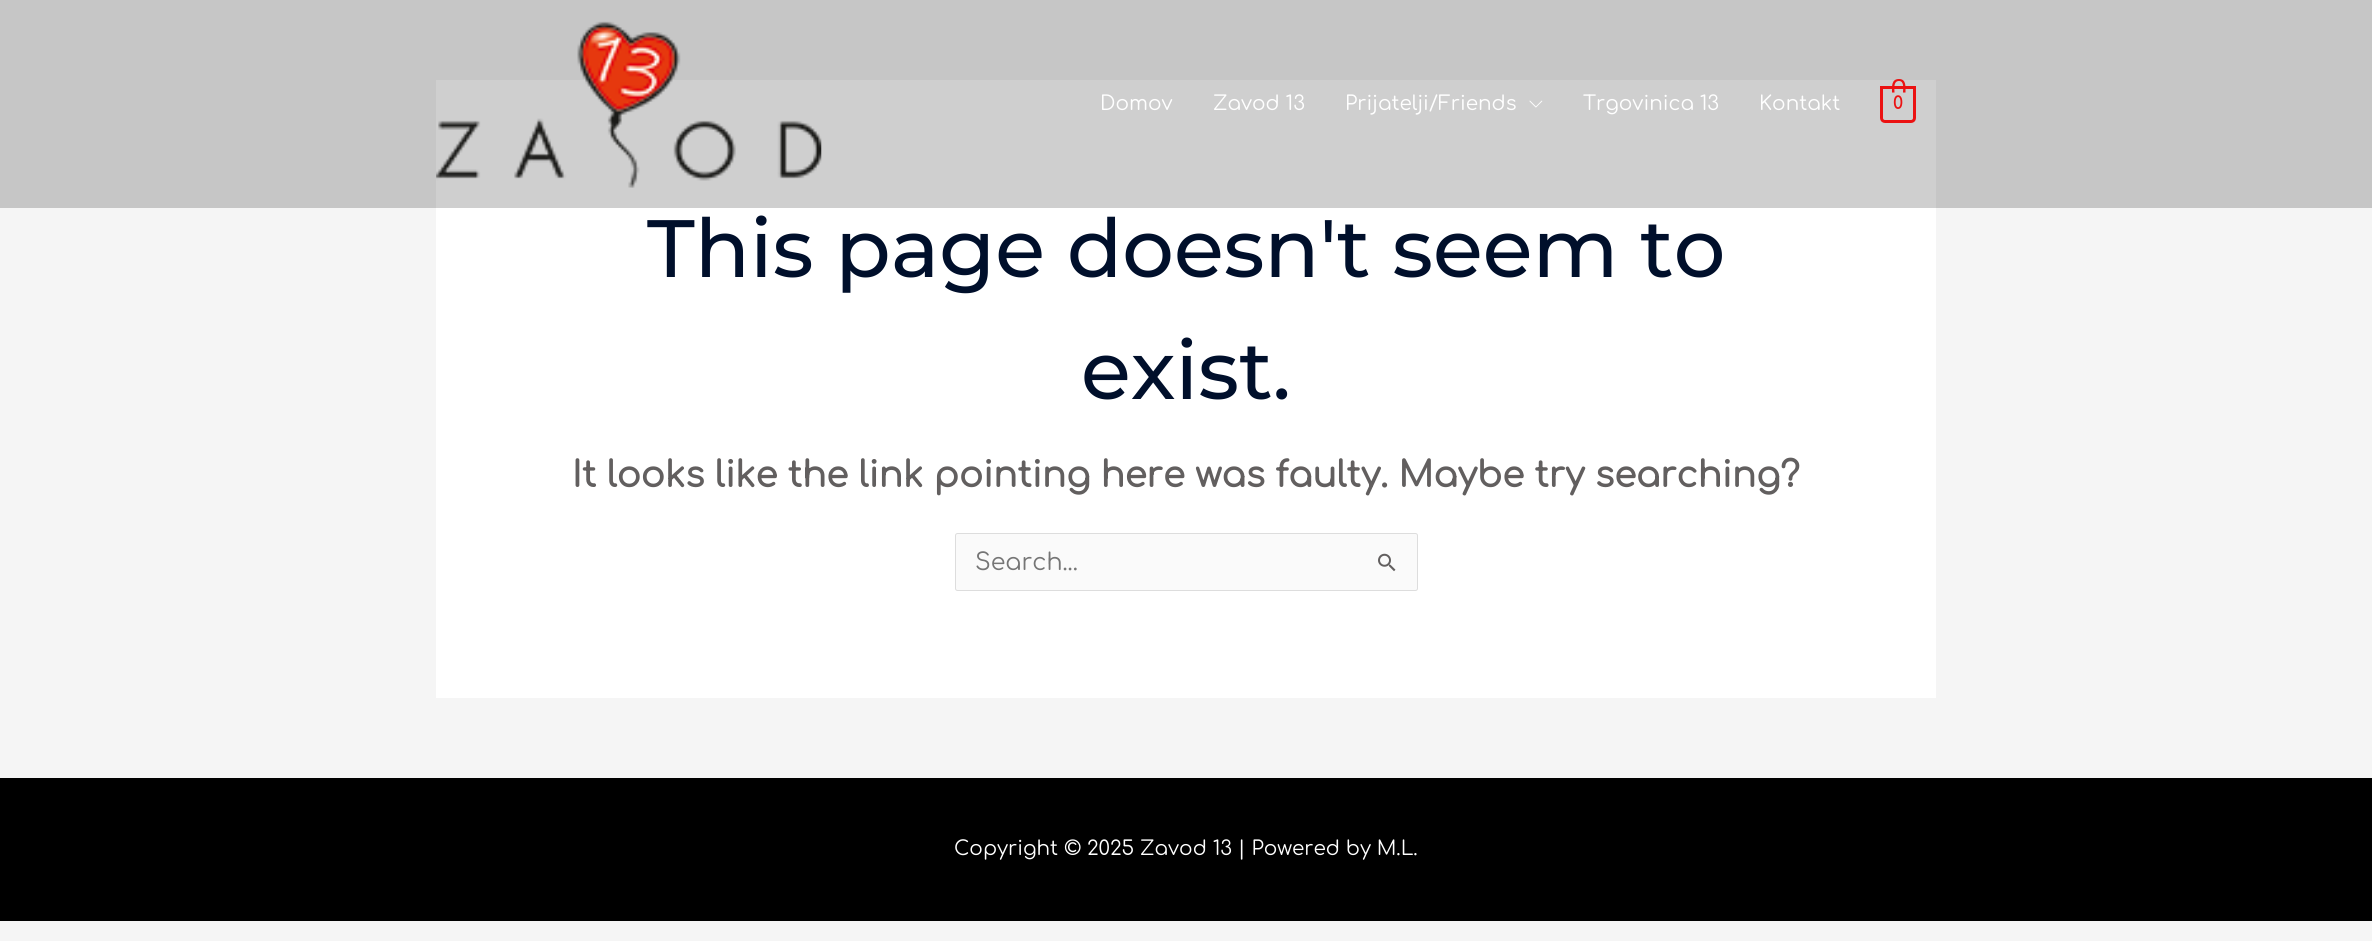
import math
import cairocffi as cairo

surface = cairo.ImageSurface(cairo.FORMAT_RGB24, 2372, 941)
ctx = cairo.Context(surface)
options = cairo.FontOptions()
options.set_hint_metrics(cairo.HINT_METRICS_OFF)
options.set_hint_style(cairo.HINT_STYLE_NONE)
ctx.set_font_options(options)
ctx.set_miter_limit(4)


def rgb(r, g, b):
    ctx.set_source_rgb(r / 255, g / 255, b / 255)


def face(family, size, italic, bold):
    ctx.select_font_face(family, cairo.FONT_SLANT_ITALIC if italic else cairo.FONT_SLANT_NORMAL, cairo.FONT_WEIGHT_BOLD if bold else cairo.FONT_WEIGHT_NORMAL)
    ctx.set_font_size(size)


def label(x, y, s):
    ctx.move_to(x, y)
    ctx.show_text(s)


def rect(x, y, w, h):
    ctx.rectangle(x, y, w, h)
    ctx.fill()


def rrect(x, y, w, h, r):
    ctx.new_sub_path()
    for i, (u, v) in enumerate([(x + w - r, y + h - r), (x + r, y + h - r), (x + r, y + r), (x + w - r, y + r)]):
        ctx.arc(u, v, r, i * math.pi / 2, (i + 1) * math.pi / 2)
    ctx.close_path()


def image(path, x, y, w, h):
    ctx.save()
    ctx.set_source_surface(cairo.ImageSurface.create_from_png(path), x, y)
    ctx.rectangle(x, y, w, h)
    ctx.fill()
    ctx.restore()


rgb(245, 245, 245)
ctx.paint()
rgb(198, 198, 198)
rect(0, 0, 2372, 208)
rgb(207, 207, 207)
rect(436, 80, 1500, 128)
image('image0.png', 436, 21, 386, 167)
face('Comfortaa', 20, 0, 0)
rgb(255, 255, 255)
label(1100, 110, 'Domov')
label(1213, 110, 'Zavod 13')
label(1345, 110, 'Prijatelji/Friends')
image('image1.png', 1529, 100, 14, 8)
label(1583, 110, 'Trgovinica 13')
label(1759, 110, 'Kontakt')
ctx.new_path()
ctx.move_to(1881.5, 87.5)
ctx.line_to(1914.5, 87.5)
ctx.line_to(1914.5, 118)
ctx.curve_to(1914.5, 120, 1913, 121.5, 1911, 121.5)
ctx.line_to(1885, 121.5)
ctx.curve_to(1883, 121.5, 1881.5, 120, 1881.5, 118)
ctx.close_path()
rgb(235, 18, 18)
ctx.set_line_width(3)
ctx.stroke()
ctx.set_fill_rule(cairo.FILL_RULE_EVEN_ODD)
ctx.new_path()
ctx.move_to(1899, 79)
ctx.curve_to(1906.5, 79, 1905.5, 87, 1905.5, 92.5)
ctx.line_to(1892, 92.5)
ctx.curve_to(1892, 87, 1891, 79, 1899, 79)
ctx.close_path()
ctx.move_to(1899, 81)
ctx.curve_to(1904.5, 81, 1903, 89, 1903, 92.5)
ctx.line_to(1894.5, 92.5)
ctx.curve_to(1894.5, 89, 1893, 81, 1899, 81)
ctx.close_path()
ctx.fill()
face('Comfortaa', 17, 0, 1)
label(1893, 109, '0')
rgb(255, 255, 255)
rect(436, 208, 1500, 490)
face('Montserrat Medium', 81.25, 0, 0)
rgb(0, 15, 43)
label(647, 277, 'This page doesn\'t seem to')
label(1081, 399, 'exist.')
face('Comfortaa', 35.6, 0, 1)
rgb(98, 95, 95)
label(572, 487, 'It looks like the link pointing here was faulty. Maybe try searching?')
rgb(250, 250, 250)
rrect(955.5, 533.5, 462, 57, 2)
ctx.fill_preserve()
rgb(221, 221, 221)
ctx.set_line_width(1)
ctx.stroke()
face('Comfortaa', 23.75, 0, 0)
rgb(117, 117, 117)
label(975, 570, 'Search...')
image('image2.png', 1378, 553, 18, 19)
rgb(0, 0, 0)
rect(0, 778, 2372, 143)
face('Comfortaa', 20, 0, 0)
rgb(255, 255, 255)
label(954, 855, 'Copyright © 2025 Zavod 13 | Powered by M.L.')
surface.write_to_png('render.png')
